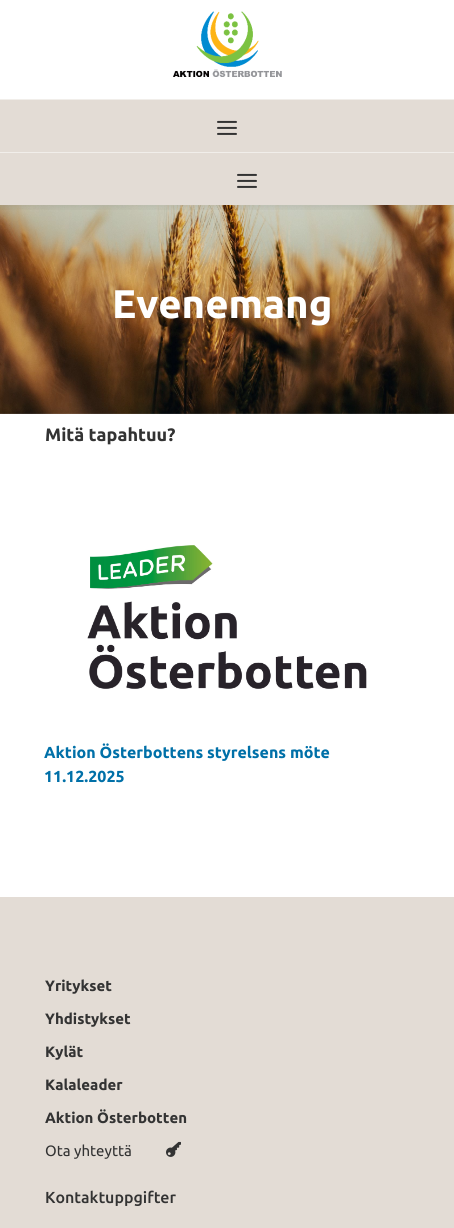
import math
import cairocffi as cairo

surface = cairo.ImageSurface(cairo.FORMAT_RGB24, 454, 1228)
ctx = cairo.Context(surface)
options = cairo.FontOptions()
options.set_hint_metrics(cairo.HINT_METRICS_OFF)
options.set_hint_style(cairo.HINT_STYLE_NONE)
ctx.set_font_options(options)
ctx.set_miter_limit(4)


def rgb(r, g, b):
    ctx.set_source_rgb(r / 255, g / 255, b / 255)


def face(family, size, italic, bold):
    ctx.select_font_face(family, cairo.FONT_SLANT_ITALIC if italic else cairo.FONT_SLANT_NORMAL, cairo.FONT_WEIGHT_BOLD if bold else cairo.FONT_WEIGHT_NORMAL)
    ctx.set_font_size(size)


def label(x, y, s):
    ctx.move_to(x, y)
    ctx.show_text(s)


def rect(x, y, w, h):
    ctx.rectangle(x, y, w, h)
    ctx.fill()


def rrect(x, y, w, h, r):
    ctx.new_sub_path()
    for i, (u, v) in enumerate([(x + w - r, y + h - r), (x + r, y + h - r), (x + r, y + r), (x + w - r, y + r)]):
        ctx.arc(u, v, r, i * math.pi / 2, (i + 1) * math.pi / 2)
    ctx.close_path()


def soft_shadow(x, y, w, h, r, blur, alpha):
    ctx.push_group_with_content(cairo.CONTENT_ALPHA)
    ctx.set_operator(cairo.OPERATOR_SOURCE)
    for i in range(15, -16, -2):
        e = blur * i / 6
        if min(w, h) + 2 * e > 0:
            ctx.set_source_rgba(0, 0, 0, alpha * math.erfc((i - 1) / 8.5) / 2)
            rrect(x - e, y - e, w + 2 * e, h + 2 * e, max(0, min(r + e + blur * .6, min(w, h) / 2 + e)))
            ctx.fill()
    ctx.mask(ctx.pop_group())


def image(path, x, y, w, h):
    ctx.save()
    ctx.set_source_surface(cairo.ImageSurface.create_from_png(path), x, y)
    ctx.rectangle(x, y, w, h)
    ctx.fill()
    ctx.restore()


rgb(255, 255, 255)
ctx.paint()
image('image2.png', 0, 205, 454, 209)
ctx.save()
ctx.rectangle(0, 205, 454, 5)
ctx.clip()
rgb(0, 0, 0)
soft_shadow(0, 1, 454, 205, 0, 5, 0.1)
ctx.restore()
image('image0.png', 173, 11, 109, 66)
rgb(227, 220, 213)
rect(0, 100, 454, 105)
rgb(241, 238, 234)
rect(0, 99, 454, 1)
image('image1.png', 217, 120, 20, 15)
rect(0, 152, 454, 1)
image('image1.png', 237, 173, 20, 15)
face('Ubuntu', 40, 0, 1)
rgb(255, 255, 255)
label(112, 318, 'Evenemang')
face('Ubuntu', 18, 0, 1)
rgb(51, 51, 51)
label(45, 441, 'Mitä tapahtuu?')
image('image3.png', 87, 545, 280, 144)
face('Ubuntu', 16, 0, 1)
rgb(0, 112, 168)
label(44, 758, 'Aktion Österbottens styrelsens möte')
label(44, 782, '11.12.2025')
rgb(227, 220, 213)
rect(0, 897, 454, 331)
face('Ubuntu', 15, 0, 1)
rgb(51, 51, 51)
label(45, 991, 'Yritykset')
label(45, 1024, 'Yhdistykset')
label(45, 1057, 'Kylät')
label(45, 1090, 'Kalaleader')
label(45, 1123, 'Aktion Österbotten')
face('Ubuntu', 15, 0, 0)
label(45, 1156, 'Ota yhteyttä')
image('image4.png', 166, 1141, 15, 16)
face('Ubuntu Medium', 16, 0, 0)
label(45, 1203, 'Kontaktuppgifter')
surface.write_to_png('render.png')
